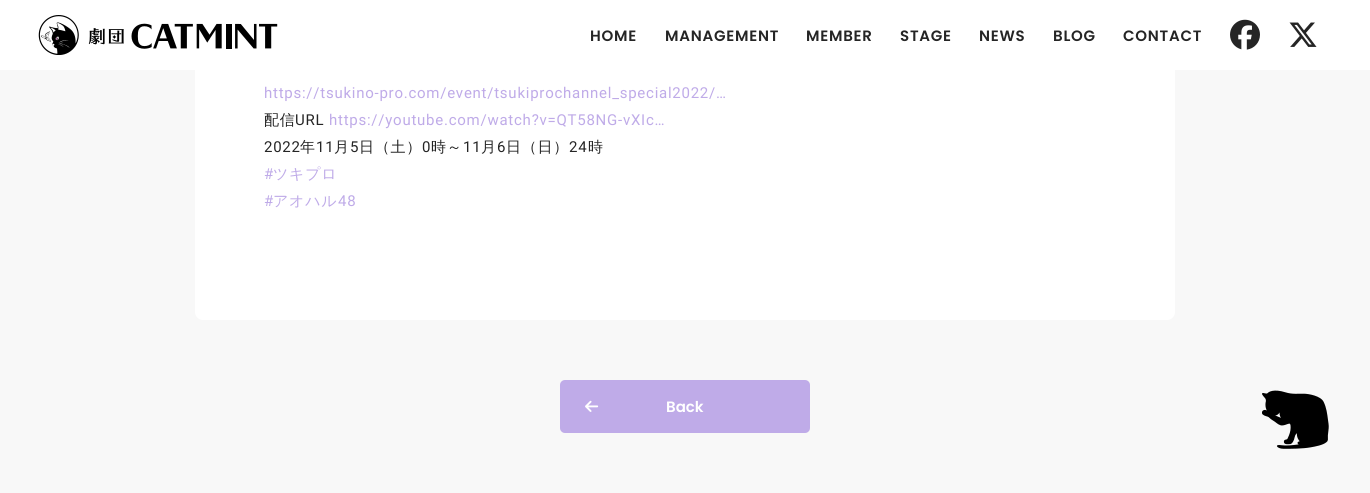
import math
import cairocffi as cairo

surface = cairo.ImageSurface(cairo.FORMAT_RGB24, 1370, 493)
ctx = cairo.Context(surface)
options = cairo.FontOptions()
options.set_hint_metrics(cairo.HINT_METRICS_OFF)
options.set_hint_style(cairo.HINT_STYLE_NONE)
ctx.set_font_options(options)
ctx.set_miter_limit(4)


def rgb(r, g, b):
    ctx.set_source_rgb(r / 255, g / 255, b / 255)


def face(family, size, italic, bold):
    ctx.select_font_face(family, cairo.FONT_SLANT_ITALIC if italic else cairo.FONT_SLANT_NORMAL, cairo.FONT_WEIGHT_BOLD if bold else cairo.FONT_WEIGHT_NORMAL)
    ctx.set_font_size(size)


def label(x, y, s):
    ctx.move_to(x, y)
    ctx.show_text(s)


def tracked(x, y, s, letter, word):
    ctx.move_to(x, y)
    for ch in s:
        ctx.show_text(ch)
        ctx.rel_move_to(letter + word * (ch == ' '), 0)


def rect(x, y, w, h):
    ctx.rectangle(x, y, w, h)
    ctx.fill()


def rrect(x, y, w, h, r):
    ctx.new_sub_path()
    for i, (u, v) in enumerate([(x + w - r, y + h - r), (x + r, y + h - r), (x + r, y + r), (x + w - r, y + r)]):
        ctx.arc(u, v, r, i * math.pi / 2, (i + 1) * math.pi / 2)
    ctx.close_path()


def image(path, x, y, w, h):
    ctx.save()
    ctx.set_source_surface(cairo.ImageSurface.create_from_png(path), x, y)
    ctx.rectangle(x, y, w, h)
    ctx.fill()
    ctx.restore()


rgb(248, 248, 248)
ctx.paint()
rgb(255, 255, 255)
rrect(195, -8, 980, 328, 8)
ctx.fill()
rect(0, 0, 1370, 70)
image('image0.png', 38, 15, 240, 40)
face('Poppins SemiBold', 15, 0, 0)
rgb(37, 37, 37)
tracked(590, 41, 'HOME', 0.75, 0)
tracked(665, 41, 'MANAGEMENT', 0.75, 0)
tracked(806, 41, 'MEMBER', 0.75, 0)
tracked(900, 41, 'STAGE', 0.75, 0)
tracked(979, 41, 'NEWS', 0.75, 0)
tracked(1053, 41, 'BLOG', 0.75, 0)
tracked(1123, 41, 'CONTACT', 0.75, 0)
image('image1.png', 1230, 19, 30, 31)
image('image2.png', 1289, 22, 28, 25)
face('Roboto', 15, 0, 0)
rgb(191, 171, 232)
tracked(264, 98, 'https://tsukino-pro.com/event/tsukiprochannel_special2022/…', 0.75, 0)
face('WenQuanYi Zen Hei Medium', 15, 0, 0)
rgb(37, 37, 37)
tracked(264, 125, '配信', 0.75, 0)
face('Roboto', 15, 0, 0)
tracked(295, 125, 'URL', 0.75, 0)
rgb(191, 171, 232)
tracked(329, 125, 'https://youtube.com/watch?v=QT58NG-vXIc…', 0.75, 0)
rgb(37, 37, 37)
tracked(264, 152, '2022', 0.75, 0)
face('WenQuanYi Zen Hei Medium', 15, 0, 0)
tracked(300, 152, '年', 0.75, 0)
face('Roboto', 15, 0, 0)
tracked(316, 152, '11', 0.75, 0)
face('WenQuanYi Zen Hei Medium', 15, 0, 0)
tracked(334, 152, '月', 0.75, 0)
face('Roboto', 15, 0, 0)
tracked(350, 152, '5', 0.75, 0)
face('WenQuanYi Zen Hei Medium', 15, 0, 0)
tracked(359, 152, '日（土）', 0.75, 0)
face('Roboto', 15, 0, 0)
tracked(422, 152, '0', 0.75, 0)
face('WenQuanYi Zen Hei Medium', 15, 0, 0)
tracked(431, 152, '時～', 0.75, 0)
face('Roboto', 15, 0, 0)
tracked(463, 152, '11', 0.75, 0)
face('WenQuanYi Zen Hei Medium', 15, 0, 0)
tracked(481, 152, '月', 0.75, 0)
face('Roboto', 15, 0, 0)
tracked(497, 152, '6', 0.75, 0)
face('WenQuanYi Zen Hei Medium', 15, 0, 0)
tracked(506, 152, '日（日）', 0.75, 0)
face('Roboto', 15, 0, 0)
tracked(569, 152, '24', 0.75, 0)
face('WenQuanYi Zen Hei Medium', 15, 0, 0)
tracked(588, 152, '時', 0.75, 0)
face('Roboto', 15, 0, 0)
rgb(191, 171, 232)
tracked(264, 179, '#', 0.75, 0)
face('WenQuanYi Zen Hei Medium', 15, 0, 0)
tracked(273, 179, 'ツキプロ', 0.75, 0)
face('Roboto', 15, 0, 0)
tracked(264, 206, '#', 0.75, 0)
face('WenQuanYi Zen Hei Medium', 15, 0, 0)
tracked(273, 206, 'アオハル', 0.75, 0)
face('Roboto', 15, 0, 0)
tracked(338, 206, '48', 0.75, 0)
rrect(560, 380, 250, 53, 5)
ctx.fill()
image('image3.png', 585, 400, 14, 12)
face('Poppins SemiBold', 15, 0, 0)
rgb(255, 255, 255)
label(666, 412, 'Back')
image('image4.png', 1262, 390, 67, 59)
surface.write_to_png('render.png')
